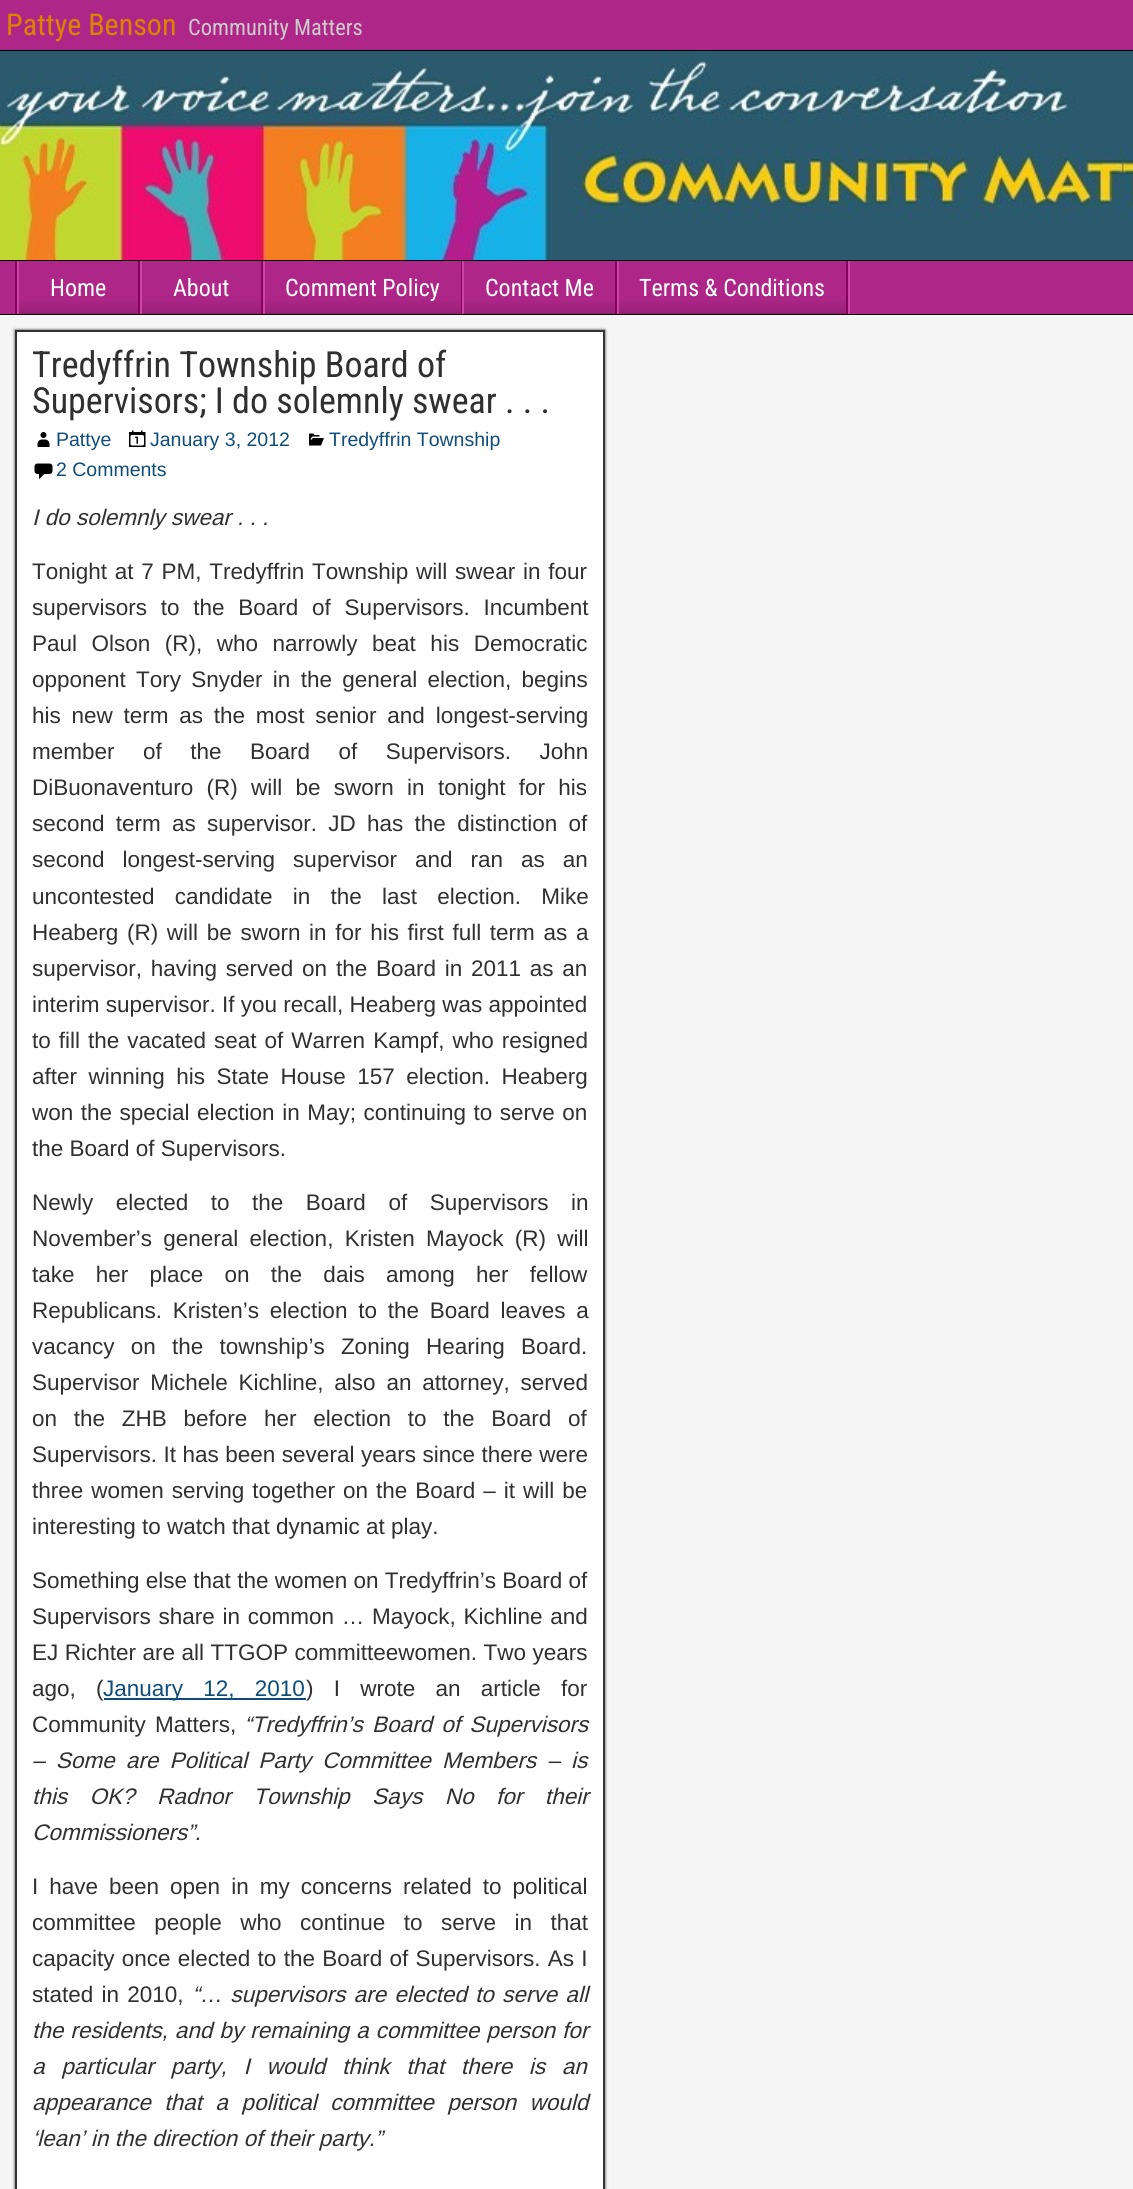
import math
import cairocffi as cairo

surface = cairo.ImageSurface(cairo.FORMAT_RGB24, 1133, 2189)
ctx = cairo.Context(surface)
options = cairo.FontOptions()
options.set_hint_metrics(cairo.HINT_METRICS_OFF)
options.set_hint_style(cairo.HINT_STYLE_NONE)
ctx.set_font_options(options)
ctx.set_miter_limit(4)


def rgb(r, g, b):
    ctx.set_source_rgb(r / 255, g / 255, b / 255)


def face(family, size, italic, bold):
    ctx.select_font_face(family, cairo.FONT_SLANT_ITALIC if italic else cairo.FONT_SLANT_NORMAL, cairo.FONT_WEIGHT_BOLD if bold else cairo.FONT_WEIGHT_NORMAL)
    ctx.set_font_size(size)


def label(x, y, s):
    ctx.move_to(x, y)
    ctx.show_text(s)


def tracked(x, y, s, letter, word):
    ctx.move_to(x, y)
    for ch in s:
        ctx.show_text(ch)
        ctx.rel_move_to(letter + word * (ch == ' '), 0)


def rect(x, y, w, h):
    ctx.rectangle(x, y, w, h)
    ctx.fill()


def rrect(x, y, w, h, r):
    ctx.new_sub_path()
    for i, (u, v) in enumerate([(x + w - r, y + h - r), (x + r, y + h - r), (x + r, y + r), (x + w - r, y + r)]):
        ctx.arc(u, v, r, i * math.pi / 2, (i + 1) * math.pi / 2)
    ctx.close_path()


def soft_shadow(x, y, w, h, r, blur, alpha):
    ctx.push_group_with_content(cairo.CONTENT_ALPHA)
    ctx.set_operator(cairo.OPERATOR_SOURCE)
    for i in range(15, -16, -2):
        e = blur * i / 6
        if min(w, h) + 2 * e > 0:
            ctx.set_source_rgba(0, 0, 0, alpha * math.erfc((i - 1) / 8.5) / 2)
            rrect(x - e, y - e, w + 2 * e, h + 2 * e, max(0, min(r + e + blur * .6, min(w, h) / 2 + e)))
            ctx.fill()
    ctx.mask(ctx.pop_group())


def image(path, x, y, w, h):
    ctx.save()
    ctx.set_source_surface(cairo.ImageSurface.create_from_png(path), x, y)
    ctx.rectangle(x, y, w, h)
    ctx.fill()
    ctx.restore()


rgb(175, 38, 137)
ctx.paint()
rgb(0, 0, 0)
rect(0, 50, 1133, 1)
face('Roboto Condensed', 30, 0, 0)
rgb(220, 131, 0)
label(6, 35, 'Pattye Benson')
face('Roboto Condensed', 22.5, 0, 0)
rgb(204, 204, 204)
label(188, 35, 'Community Matters')
image('image0.png', 0, 51, 1133, 209)
rgb(0, 0, 0)
rect(0, 260, 1133, 1)
rect(0, 314, 1133, 1)
rgb(205, 68, 167)
rect(848, 261, 2, 53)
rgb(135, 0, 97)
rect(15, 261, 2, 53)
gradient = cairo.LinearGradient(78, 261, 78, 314)
gradient.add_color_stop_rgba(0.7, 0.686, 0.149, 0.537, 1)
gradient.add_color_stop_rgba(1, 0.584, 0.125, 0.455, 1)
ctx.set_source(gradient)
rect(19, 300, 119, 14)
rgb(135, 0, 97)
rect(138, 261, 2, 53)
rgb(205, 68, 167)
rect(17, 261, 2, 53)
face('Roboto Condensed', 24, 0, 0)
rgb(255, 255, 255)
label(50, 296, 'Home')
gradient = cairo.LinearGradient(201, 261, 201, 314)
gradient.add_color_stop_rgba(0.7, 0.686, 0.149, 0.537, 1)
gradient.add_color_stop_rgba(1, 0.584, 0.125, 0.455, 1)
ctx.set_source(gradient)
rect(142, 300, 119, 14)
rgb(135, 0, 97)
rect(261, 261, 2, 53)
rgb(205, 68, 167)
rect(140, 261, 2, 53)
rgb(255, 255, 255)
label(173, 296, 'About')
gradient = cairo.LinearGradient(362, 261, 362, 314)
gradient.add_color_stop_rgba(0.7, 0.686, 0.149, 0.537, 1)
gradient.add_color_stop_rgba(1, 0.584, 0.125, 0.455, 1)
ctx.set_source(gradient)
rect(265, 300, 196, 14)
rgb(135, 0, 97)
rect(461, 261, 1, 53)
rgb(205, 68, 167)
rect(263, 261, 2, 53)
rgb(255, 255, 255)
label(285, 296, 'Comment Policy')
gradient = cairo.LinearGradient(539, 261, 539, 314)
gradient.add_color_stop_rgba(0.7, 0, 0, 0, 0)
gradient.add_color_stop_rgba(1, 0, 0, 0, 0.15)
ctx.set_source(gradient)
rect(464, 300, 151, 14)
rgb(135, 0, 97)
rect(615, 261, 2, 53)
rgb(205, 68, 167)
rect(462, 261, 2, 53)
rgb(255, 255, 255)
label(485, 296, 'Contact Me')
gradient = cairo.LinearGradient(732, 261, 732, 314)
gradient.add_color_stop_rgba(0.7, 0.686, 0.149, 0.537, 1)
gradient.add_color_stop_rgba(1, 0.584, 0.125, 0.455, 1)
ctx.set_source(gradient)
rect(619, 300, 227, 14)
rgb(135, 0, 97)
rect(846, 261, 2, 53)
rgb(205, 68, 167)
rect(617, 261, 2, 53)
rgb(255, 255, 255)
label(639, 296, 'Terms & Conditions')
rgb(245, 245, 245)
rect(0, 315, 1133, 1874)
rgb(51, 51, 51)
soft_shadow(15, 330, 590, 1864, 0, 1.5, 1)
rgb(255, 255, 255)
ctx.rectangle(16, 331, 588, 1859)
ctx.fill_preserve()
rgb(51, 51, 51)
ctx.stroke()
face('Roboto Condensed', 36, 0, 0)
rgb(48, 48, 48)
label(32, 377, 'Tredyffrin Township Board of')
label(32, 413, 'Supervisors; I do solemnly swear . . .')
image('image1.png', 37, 432, 13, 15)
face('Liberation Sans', 19.5, 0, 0)
rgb(14, 77, 122)
label(56, 446, 'Pattye')
image('image2.png', 129, 430, 17, 17)
label(150, 446, 'January 3, 2012')
image('image3.png', 309, 433, 15, 13)
label(329, 446, 'Tredyffrin Township')
image('image4.png', 34, 463, 19, 17)
label(56, 476, '2 Comments')
face('Arimo', 22.5, 1, 0)
rgb(48, 48, 48)
label(32, 525, 'I do solemnly swear . . .')
face('Arimo', 22.5, 0, 0)
tracked(32, 579, 'Tonight at 7 PM, Tredyffrin Township will swear in four', 0, 1.5)
tracked(32, 615, 'supervisors to the Board of Supervisors. Incumbent', 0, 7.5)
tracked(32, 651, 'Paul Olson (R), who narrowly beat his Democratic', 0, 8.25)
tracked(32, 687, 'opponent Tory Snyder in the general election, begins', 0, 4)
tracked(32, 723, 'his new term as the most senior and longest-serving', 0, 4.5)
tracked(32, 759, 'member of the Board of Supervisors. John', 0, 22.25)
tracked(32, 795, 'DiBuonaventuro (R) will be sworn in tonight for his', 0, 7)
tracked(32, 831, 'second term as supervisor. JD has the distinction of', 0, 5)
tracked(32, 867, 'second longest-serving supervisor and ran as an', 0, 11.75)
tracked(32, 904, 'uncontested candidate in the last election. Mike', 0, 14)
tracked(32, 940, 'Heaberg (R) will be sworn in for his first full term as a', 0, 2.4)
tracked(32, 976, 'supervisor, having served on the Board in 2011 as an', 0, 2.5)
label(32, 1012, 'interim supervisor. If you recall, Heaberg was appointed')
tracked(32, 1048, 'to fill the vacated seat of Warren Kampf, who resigned', 0, 1.75)
tracked(32, 1084, 'after winning his State House 157 election. Heaberg', 0, 5.25)
tracked(32, 1120, 'won the special election in May; continuing to serve on', 0, 1.25)
label(32, 1156, 'the Board of Supervisors.')
tracked(32, 1210, 'Newly elected to the Board of Supervisors in', 0, 16.25)
tracked(32, 1246, 'November’s general election, Kristen Mayock (R) will', 0, 5)
tracked(32, 1282, 'take her place on the dais among her fellow', 0, 15)
tracked(32, 1318, 'Republicans. Kristen’s election to the Board leaves a', 0, 4.5)
tracked(32, 1354, 'vacancy on the township’s Zoning Hearing Board.', 0, 10)
tracked(32, 1390, 'Supervisor Michele Kichline, also an attorney, served', 0, 4.5)
tracked(32, 1426, 'on the ZHB before her election to the Board of', 0, 10.5)
tracked(32, 1462, 'Supervisors. It has been several years since there were', 0, 0.25)
tracked(32, 1498, 'three women serving together on the Board – it will be', 0, 1.75)
label(32, 1534, 'interesting to watch that dynamic at play.')
label(32, 1588, 'Something else that the women on Tredyffrin’s Board of')
tracked(32, 1624, 'Supervisors share in common … Mayock, Kichline and', 0, 1.5)
tracked(32, 1660, 'EJ Richter are all TTGOP committeewomen. Two years', 0, 0.25)
tracked(32, 1696, 'ago, (', 0, 14)
rgb(14, 77, 122)
rect(104, 1698, 202, 2)
tracked(103, 1696, 'January 12, 2010', 0, 14)
rgb(48, 48, 48)
tracked(306, 1696, ') I wrote an article for', 0, 14)
tracked(32, 1732, 'Community Matters,', 0, 3)
face('Arimo', 22.5, 1, 0)
tracked(244, 1732, '“Tredyffrin’s Board of Supervisors', 0, 3)
tracked(32, 1768, '– Some are Political Party Committee Members – is', 0, 5)
tracked(32, 1804, 'this OK? Radnor Township Says No for their', 0, 16.25)
label(32, 1840, 'Commissioners”.')
face('Arimo', 22.5, 0, 0)
tracked(32, 1894, 'I have been open in my concerns related to political', 0, 4.75)
tracked(32, 1930, 'committee people who continue to serve in that', 0, 12.25)
tracked(32, 1966, 'capacity once elected to the Board of Supervisors. As I', 0, 1)
tracked(32, 2002, 'stated in 2010,', 0, 2)
face('Arimo', 22.5, 1, 0)
tracked(192, 2002, '“… supervisors are elected to serve all', 0, 2)
tracked(32, 2038, 'the residents, and by remaining a committee person for', 0, 0.75)
tracked(32, 2074, 'a particular party, I would think that there is an', 0, 10.5)
tracked(32, 2110, 'appearance that a political committee person would', 0, 7.25)
label(32, 2146, '‘lean’ in the direction of their party.”')
surface.write_to_png('render.png')
